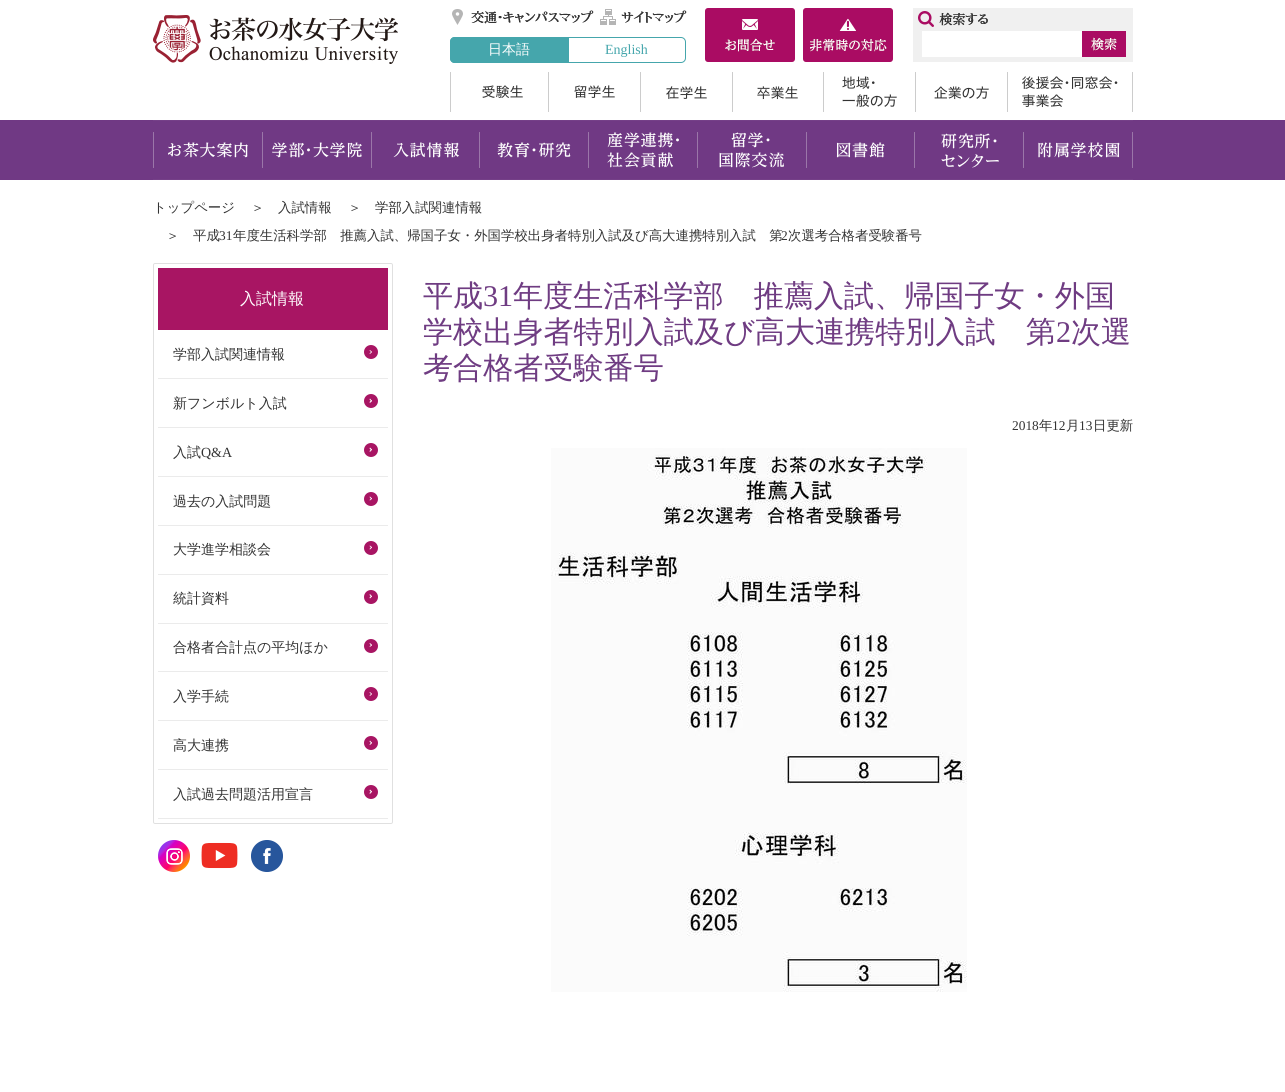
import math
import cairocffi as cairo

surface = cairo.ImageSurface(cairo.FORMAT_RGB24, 1285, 1092)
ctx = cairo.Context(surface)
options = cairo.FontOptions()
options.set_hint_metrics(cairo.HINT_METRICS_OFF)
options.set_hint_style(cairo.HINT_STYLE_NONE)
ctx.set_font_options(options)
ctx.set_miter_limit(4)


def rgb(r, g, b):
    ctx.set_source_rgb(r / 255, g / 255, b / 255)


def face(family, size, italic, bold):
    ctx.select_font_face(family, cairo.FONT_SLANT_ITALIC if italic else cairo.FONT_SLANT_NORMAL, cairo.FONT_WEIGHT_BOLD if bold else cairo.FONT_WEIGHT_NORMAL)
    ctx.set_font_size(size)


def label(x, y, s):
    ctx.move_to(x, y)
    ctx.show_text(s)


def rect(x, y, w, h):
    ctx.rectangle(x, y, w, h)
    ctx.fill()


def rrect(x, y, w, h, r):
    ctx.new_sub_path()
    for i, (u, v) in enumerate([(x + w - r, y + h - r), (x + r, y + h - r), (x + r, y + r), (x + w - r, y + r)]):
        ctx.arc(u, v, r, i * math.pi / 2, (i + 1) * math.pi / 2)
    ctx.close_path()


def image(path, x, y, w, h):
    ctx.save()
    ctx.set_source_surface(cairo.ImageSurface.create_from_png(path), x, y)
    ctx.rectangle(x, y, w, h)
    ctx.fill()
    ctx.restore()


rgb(255, 255, 255)
ctx.paint()
image('image0.png', 153, 15, 245, 49)
image('image1.png', 452, 9, 142, 16)
image('image2.png', 600, 9, 87, 16)
rgb(69, 166, 172)
ctx.new_path()
ctx.move_to(455, 37)
ctx.line_to(568, 37)
ctx.line_to(568, 63)
ctx.line_to(455, 63)
ctx.curve_to(452, 63, 450, 61, 450, 58)
ctx.line_to(450, 42)
ctx.curve_to(450, 39, 452, 37, 455, 37)
ctx.close_path()
ctx.fill()
ctx.set_fill_rule(cairo.FILL_RULE_EVEN_ODD)
ctx.new_path()
ctx.move_to(455, 37)
ctx.line_to(568, 37)
ctx.line_to(568, 63)
ctx.line_to(455, 63)
ctx.curve_to(452, 63, 450, 61, 450, 58)
ctx.line_to(450, 42)
ctx.curve_to(450, 39, 452, 37, 455, 37)
ctx.close_path()
ctx.move_to(455, 38)
ctx.line_to(568, 38)
ctx.line_to(568, 62)
ctx.line_to(455, 62)
ctx.curve_to(453, 62, 451, 60, 451, 58)
ctx.line_to(451, 42)
ctx.curve_to(451, 40, 453, 38, 455, 38)
ctx.close_path()
ctx.fill()
face('WenQuanYi Zen Hei Medium', 14, 0, 0)
rgb(255, 255, 255)
label(488, 54, '日本語')
ctx.new_path()
ctx.move_to(568.5, 37.5)
ctx.line_to(681, 37.5)
ctx.curve_to(683.5, 37.5, 685.5, 39.5, 685.5, 42)
ctx.line_to(685.5, 58)
ctx.curve_to(685.5, 60.5, 683.5, 62.5, 681, 62.5)
ctx.line_to(568.5, 62.5)
ctx.close_path()
rgb(69, 166, 172)
ctx.set_line_width(1)
ctx.stroke()
face('Liberation Serif', 14, 0, 0)
label(605, 54, 'English')
image('image3.png', 705, 8, 90, 54)
image('image4.png', 803, 8, 90, 54)
rgb(240, 240, 240)
rect(913, 8, 220, 54)
image('image5.png', 918, 11, 70, 16)
rgb(255, 255, 255)
rect(922, 31, 160, 26)
image('image6.png', 1082, 31, 44, 26)
image('image7.png', 450, 72, 73, 40)
image('image8.png', 548, 72, 67, 40)
image('image9.png', 640, 72, 67, 40)
image('image10.png', 732, 72, 66, 40)
image('image11.png', 823, 72, 74, 40)
image('image12.png', 915, 72, 74, 40)
image('image13.png', 1007, 72, 126, 40)
rgb(112, 57, 132)
rect(0, 120, 1285, 60)
image('image14.png', 153, 120, 109, 60)
image('image15.png', 262, 120, 109, 60)
image('image16.png', 371, 120, 108, 60)
image('image17.png', 479, 120, 109, 60)
image('image18.png', 588, 120, 109, 60)
image('image19.png', 697, 120, 109, 60)
image('image20.png', 806, 120, 109, 60)
image('image21.png', 915, 120, 109, 60)
image('image22.png', 1024, 120, 109, 60)
face('WenQuanYi Zen Hei Medium', 13.4, 0, 0)
rgb(51, 51, 51)
label(153, 212, 'トップページ')
label(251, 212, '＞')
label(278, 212, '入試情報')
label(348, 212, '＞')
label(375, 212, '学部入試関連情報')
label(166, 240, '＞')
label(193, 240, '平成')
face('Liberation Serif', 13.4, 0, 0)
label(219, 240, '31')
face('WenQuanYi Zen Hei Medium', 13.4, 0, 0)
label(233, 240, '年度生活科学部　推薦入試、帰国子女・外国学校出身者特別入試及び高大連携特別入試　第')
face('Liberation Serif', 13.4, 0, 0)
label(781, 240, '2')
face('WenQuanYi Zen Hei Medium', 13.4, 0, 0)
label(788, 240, '次選考合格者受験番号')
rrect(153.5, 263.5, 239, 560, 1.5)
rgb(224, 224, 224)
ctx.stroke()
rgb(168, 21, 99)
rect(158, 268, 230, 62)
face('WenQuanYi Zen Hei Medium', 16, 0, 0)
rgb(255, 255, 255)
label(240, 304, '入試情報')
rgb(235, 235, 235)
rect(158, 378, 230, 1)
face('WenQuanYi Zen Hei Medium', 14, 0, 0)
rgb(51, 51, 51)
label(173, 359, '学部入試関連情報')
rgb(168, 21, 99)
ctx.new_path()
ctx.arc(371, 352, 7, 0, 2 * math.pi)
ctx.fill()
rgb(255, 255, 255)
ctx.set_fill_rule(cairo.FILL_RULE_WINDING)
ctx.new_path()
ctx.move_to(370, 350)
ctx.line_to(372, 352)
ctx.line_to(371.5, 352.5)
ctx.line_to(369.5, 350.5)
ctx.close_path()
ctx.fill()
ctx.new_path()
ctx.move_to(371.5, 351.5)
ctx.line_to(372, 352)
ctx.line_to(370, 354)
ctx.line_to(369.5, 353.5)
ctx.close_path()
ctx.fill()
rgb(235, 235, 235)
rect(158, 427, 230, 1)
rgb(51, 51, 51)
label(173, 408, '新フンボルト入試')
rgb(168, 21, 99)
ctx.new_path()
ctx.arc(371, 401, 7, 0, 2 * math.pi)
ctx.fill()
rgb(255, 255, 255)
ctx.new_path()
ctx.move_to(370, 398.5)
ctx.line_to(372, 401)
ctx.line_to(371.5, 401.5)
ctx.line_to(369.5, 399.5)
ctx.close_path()
ctx.fill()
ctx.new_path()
ctx.move_to(371.5, 400)
ctx.line_to(372, 401)
ctx.line_to(370, 403)
ctx.line_to(369.5, 402)
ctx.close_path()
ctx.fill()
rgb(235, 235, 235)
rect(158, 476, 230, 1)
rgb(51, 51, 51)
label(173, 457, '入試')
face('Liberation Serif', 14, 0, 0)
label(201, 457, 'Q&A')
rgb(168, 21, 99)
ctx.new_path()
ctx.arc(371, 450, 7, 0, 2 * math.pi)
ctx.fill()
rgb(255, 255, 255)
ctx.new_path()
ctx.move_to(370, 447.5)
ctx.line_to(372, 449.5)
ctx.line_to(371.5, 450.5)
ctx.line_to(369.5, 448.5)
ctx.close_path()
ctx.fill()
ctx.new_path()
ctx.move_to(371.5, 449)
ctx.line_to(372, 449.5)
ctx.line_to(370, 452)
ctx.line_to(369.5, 451)
ctx.close_path()
ctx.fill()
rgb(235, 235, 235)
rect(158, 525, 230, 1)
face('WenQuanYi Zen Hei Medium', 14, 0, 0)
rgb(51, 51, 51)
label(173, 506, '過去の入試問題')
rgb(168, 21, 99)
ctx.new_path()
ctx.arc(371, 499, 7, 0, 2 * math.pi)
ctx.fill()
rgb(255, 255, 255)
ctx.new_path()
ctx.move_to(370, 496.5)
ctx.line_to(372, 498.5)
ctx.line_to(371.5, 499.5)
ctx.line_to(369.5, 497)
ctx.close_path()
ctx.fill()
ctx.new_path()
ctx.move_to(371.5, 498)
ctx.line_to(372, 498.5)
ctx.line_to(370, 500.5)
ctx.line_to(369.5, 500)
ctx.close_path()
ctx.fill()
rgb(235, 235, 235)
rect(158, 574, 230, 1)
rgb(51, 51, 51)
label(173, 554, '大学進学相談会')
rgb(168, 21, 99)
ctx.new_path()
ctx.arc(371, 548, 7, 0, 2 * math.pi)
ctx.fill()
rgb(255, 255, 255)
ctx.new_path()
ctx.move_to(370, 545.5)
ctx.line_to(372, 547.5)
ctx.line_to(371.5, 548)
ctx.line_to(369.5, 546)
ctx.close_path()
ctx.fill()
ctx.new_path()
ctx.move_to(371.5, 546.5)
ctx.line_to(372, 547.5)
ctx.line_to(370, 549.5)
ctx.line_to(369.5, 549)
ctx.close_path()
ctx.fill()
rgb(235, 235, 235)
rect(158, 623, 230, 1)
rgb(51, 51, 51)
label(173, 603, '統計資料')
rgb(168, 21, 99)
ctx.new_path()
ctx.arc(371, 597, 7, 0, 2 * math.pi)
ctx.fill()
rgb(255, 255, 255)
ctx.new_path()
ctx.move_to(370, 594)
ctx.line_to(372, 596.5)
ctx.line_to(371.5, 597)
ctx.line_to(369.5, 595)
ctx.close_path()
ctx.fill()
ctx.new_path()
ctx.move_to(371.5, 595.5)
ctx.line_to(372, 596.5)
ctx.line_to(370, 598.5)
ctx.line_to(369.5, 597.5)
ctx.close_path()
ctx.fill()
rgb(235, 235, 235)
rect(158, 671, 230, 1)
rgb(51, 51, 51)
label(173, 652, '合格者合計点の平均ほか')
rgb(168, 21, 99)
ctx.new_path()
ctx.arc(371, 646, 7, 0, 2 * math.pi)
ctx.fill()
rgb(255, 255, 255)
ctx.new_path()
ctx.move_to(370, 643)
ctx.line_to(372, 645)
ctx.line_to(371.5, 646)
ctx.line_to(369.5, 643.5)
ctx.close_path()
ctx.fill()
ctx.new_path()
ctx.move_to(371.5, 644.5)
ctx.line_to(372, 645)
ctx.line_to(370, 647)
ctx.line_to(369.5, 646.5)
ctx.close_path()
ctx.fill()
rgb(235, 235, 235)
rect(158, 720, 230, 1)
rgb(51, 51, 51)
label(173, 701, '入学手続')
rgb(168, 21, 99)
ctx.new_path()
ctx.arc(371, 694, 7, 0, 2 * math.pi)
ctx.fill()
rgb(255, 255, 255)
ctx.new_path()
ctx.move_to(370, 692)
ctx.line_to(372, 694)
ctx.line_to(371.5, 694.5)
ctx.line_to(369.5, 692.5)
ctx.close_path()
ctx.fill()
ctx.new_path()
ctx.move_to(371.5, 693.5)
ctx.line_to(372, 694)
ctx.line_to(370, 696)
ctx.line_to(369.5, 695.5)
ctx.close_path()
ctx.fill()
rgb(235, 235, 235)
rect(158, 769, 230, 1)
rgb(51, 51, 51)
label(173, 750, '高大連携')
rgb(168, 21, 99)
ctx.new_path()
ctx.arc(371, 743, 7, 0, 2 * math.pi)
ctx.fill()
rgb(255, 255, 255)
ctx.new_path()
ctx.move_to(370, 740.5)
ctx.line_to(372, 743)
ctx.line_to(371.5, 743.5)
ctx.line_to(369.5, 741.5)
ctx.close_path()
ctx.fill()
ctx.new_path()
ctx.move_to(371.5, 742)
ctx.line_to(372, 743)
ctx.line_to(370, 745)
ctx.line_to(369.5, 744.5)
ctx.close_path()
ctx.fill()
rgb(235, 235, 235)
rect(158, 818, 230, 1)
rgb(51, 51, 51)
label(173, 799, '入試過去問題活用宣言')
rgb(168, 21, 99)
ctx.new_path()
ctx.arc(371, 792, 7, 0, 2 * math.pi)
ctx.fill()
rgb(255, 255, 255)
ctx.new_path()
ctx.move_to(370, 789.5)
ctx.line_to(372, 791.5)
ctx.line_to(371.5, 792.5)
ctx.line_to(369.5, 790.5)
ctx.close_path()
ctx.fill()
ctx.new_path()
ctx.move_to(371.5, 791)
ctx.line_to(372, 791.5)
ctx.line_to(370, 794)
ctx.line_to(369.5, 793)
ctx.close_path()
ctx.fill()
image('image23.png', 158, 840, 32, 32)
image('image24.png', 201, 842, 37, 27)
image('image25.png', 251, 840, 32, 32)
face('WenQuanYi Zen Hei Medium', 30.1, 0, 0)
rgb(111, 60, 130)
label(423, 306, '平成')
face('Liberation Serif', 30.1, 0, 0)
label(483, 306, '31')
face('WenQuanYi Zen Hei Medium', 30.1, 0, 0)
label(513, 306, '年度生活科学部　推薦入試、帰国子女・外国')
label(423, 342, '学校出身者特別入試及び高大連携特別入試　第')
face('Liberation Serif', 30.1, 0, 0)
label(1056, 342, '2')
face('WenQuanYi Zen Hei Medium', 30.1, 0, 0)
label(1071, 342, '次選')
label(423, 378, '考合格者受験番号')
face('Liberation Serif', 13.4, 0, 0)
rgb(51, 51, 51)
label(1012, 430, '2018')
face('WenQuanYi Zen Hei Medium', 13.4, 0, 0)
label(1039, 430, '年')
face('Liberation Serif', 13.4, 0, 0)
label(1052, 430, '12')
face('WenQuanYi Zen Hei Medium', 13.4, 0, 0)
label(1066, 430, '月')
face('Liberation Serif', 13.4, 0, 0)
label(1079, 430, '13')
face('WenQuanYi Zen Hei Medium', 13.4, 0, 0)
label(1093, 430, '日更新')
image('image26.png', 551, 448, 416, 544)
surface.write_to_png('render.png')
